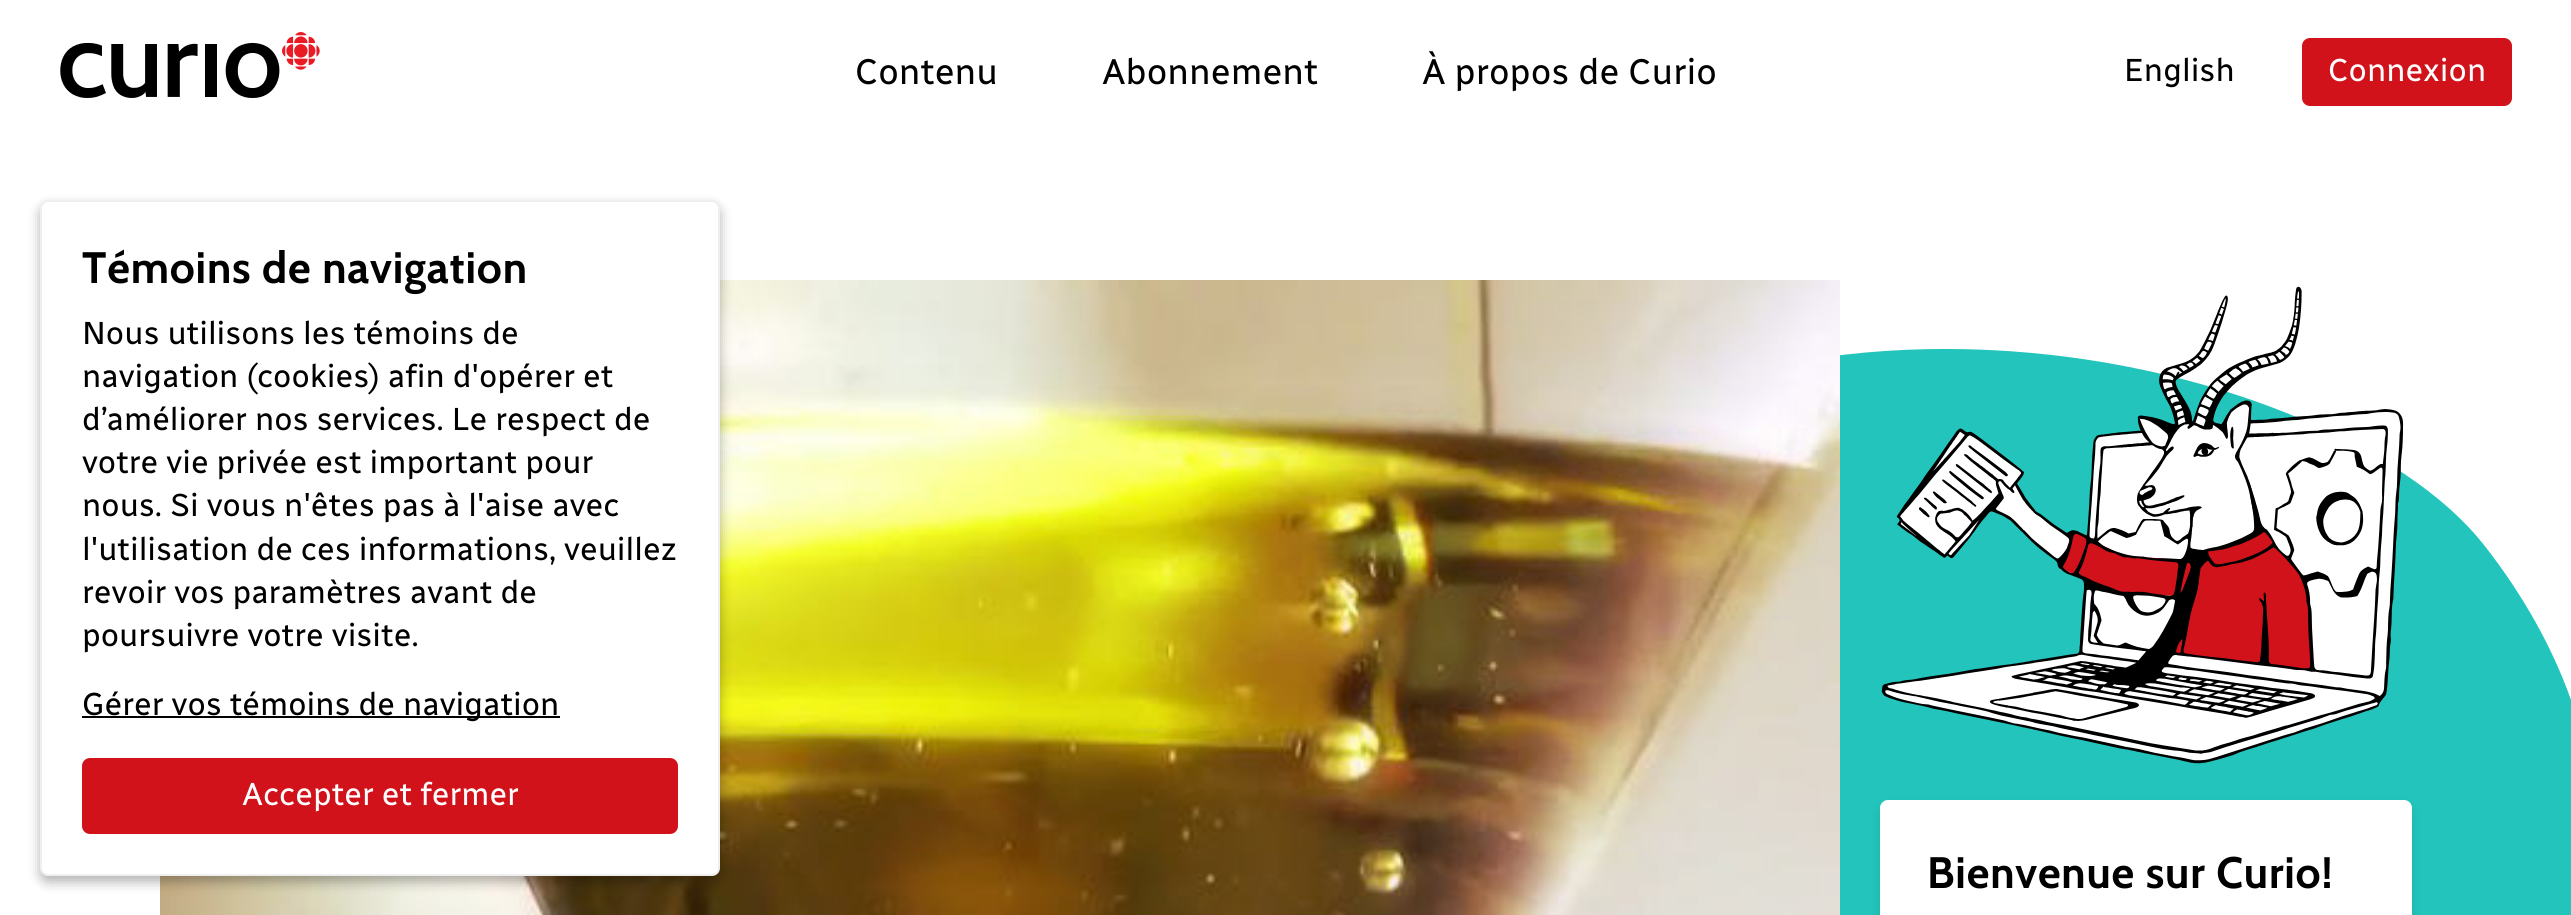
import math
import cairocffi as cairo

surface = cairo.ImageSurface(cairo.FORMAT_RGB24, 2571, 915)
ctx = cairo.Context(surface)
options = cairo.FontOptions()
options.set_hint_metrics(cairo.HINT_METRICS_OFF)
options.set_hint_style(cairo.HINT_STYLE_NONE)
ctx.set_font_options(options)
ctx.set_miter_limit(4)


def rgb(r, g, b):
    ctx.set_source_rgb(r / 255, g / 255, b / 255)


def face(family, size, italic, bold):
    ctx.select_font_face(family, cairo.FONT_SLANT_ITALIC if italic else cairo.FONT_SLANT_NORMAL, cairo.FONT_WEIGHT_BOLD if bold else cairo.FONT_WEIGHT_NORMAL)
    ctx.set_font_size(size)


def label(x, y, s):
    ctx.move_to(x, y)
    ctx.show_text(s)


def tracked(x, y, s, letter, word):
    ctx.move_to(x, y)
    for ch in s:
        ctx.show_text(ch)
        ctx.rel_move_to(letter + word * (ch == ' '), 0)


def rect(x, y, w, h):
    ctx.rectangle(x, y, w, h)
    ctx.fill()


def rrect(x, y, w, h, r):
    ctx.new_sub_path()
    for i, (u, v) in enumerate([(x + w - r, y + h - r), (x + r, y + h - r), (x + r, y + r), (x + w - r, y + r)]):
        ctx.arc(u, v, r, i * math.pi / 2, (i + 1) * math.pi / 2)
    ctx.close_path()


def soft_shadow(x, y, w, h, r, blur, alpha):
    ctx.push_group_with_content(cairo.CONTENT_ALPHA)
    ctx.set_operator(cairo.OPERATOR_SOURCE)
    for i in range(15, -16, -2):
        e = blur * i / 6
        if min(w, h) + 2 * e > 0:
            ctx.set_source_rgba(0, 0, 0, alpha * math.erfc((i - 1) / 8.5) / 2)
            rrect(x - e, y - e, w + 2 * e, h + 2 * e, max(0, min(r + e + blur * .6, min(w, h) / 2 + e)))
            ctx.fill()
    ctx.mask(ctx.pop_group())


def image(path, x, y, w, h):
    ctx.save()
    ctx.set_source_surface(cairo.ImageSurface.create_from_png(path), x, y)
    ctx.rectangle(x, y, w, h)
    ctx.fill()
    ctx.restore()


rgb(255, 255, 255)
ctx.paint()
image('image0.png', 60, 32, 260, 66)
face('Radio Canada', 36, 0, 0)
rgb(0, 0, 0)
label(855, 84, 'Contenu')
label(1102, 84, 'Abonnement')
label(1422, 84, 'À propos de Curio')
face('Radio Canada', 32, 0, 0)
label(2124, 81, 'English')
rgb(209, 18, 27)
rrect(2302, 38, 210, 68, 8)
ctx.fill()
rgb(255, 255, 255)
label(2328, 81, 'Connexion')
rgb(34, 196, 187)
ctx.new_path()
ctx.move_to(1379, 605)
ctx.curve_to(1068, 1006, 904, 746, 975, 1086)
ctx.curve_to(1050, 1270, 1379, 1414, 1719, 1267)
ctx.curve_to(2059, 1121, 2276, 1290, 2456, 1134)
ctx.curve_to(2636, 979, 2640, 744, 2484, 545)
ctx.curve_to(2328, 346, 1689, 204, 1379, 605)
ctx.close_path()
ctx.fill()
image('image1.png', 160, 280, 1680, 635)
rgb(0, 0, 0)
soft_shadow(40, 206, 680, 676, 8, 6, 0.3)
rgb(255, 255, 255)
rrect(41, 201, 678, 674, 7)
ctx.fill_preserve()
rgb(239, 239, 239)
ctx.stroke()
face('Cabin', 44, 0, 1)
rgb(0, 0, 0)
tracked(82, 283, 'Témoins de navigation', 0.8, 0)
face('Radio Canada', 32, 0, 0)
label(82, 344, 'Nous utilisons les témoins de')
label(82, 387, 'navigation (cookies) afin d\'opérer et')
label(82, 430, 'd’améliorer nos services. Le respect de')
label(82, 473, 'votre vie privée est important pour')
label(82, 516, 'nous. Si vous n\'êtes pas à l\'aise avec')
label(82, 560, 'l\'utilisation de ces informations, veuillez')
label(82, 603, 'revoir vos paramètres avant de')
label(82, 646, 'poursuivre votre visite.')
rect(82, 716, 478, 2)
label(82, 715, 'Gérer vos témoins de navigation')
rgb(209, 18, 27)
rrect(84, 760, 592, 72, 6)
ctx.fill_preserve()
ctx.set_line_width(4)
ctx.stroke()
rgb(255, 255, 255)
label(242, 805, 'Accepter et fermer')
image('image2.png', 1881, 286, 523, 478)
rgb(0, 0, 0)
soft_shadow(1880, 806, 532, 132, 8, 5, 0.1)
rgb(255, 255, 255)
rrect(1880, 800, 532, 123, 8)
ctx.fill()
face('Cabin', 44, 0, 1)
rgb(0, 0, 0)
tracked(1927, 888, 'Bienvenue sur Curio!', 0.8, 0)
surface.write_to_png('render.png')
